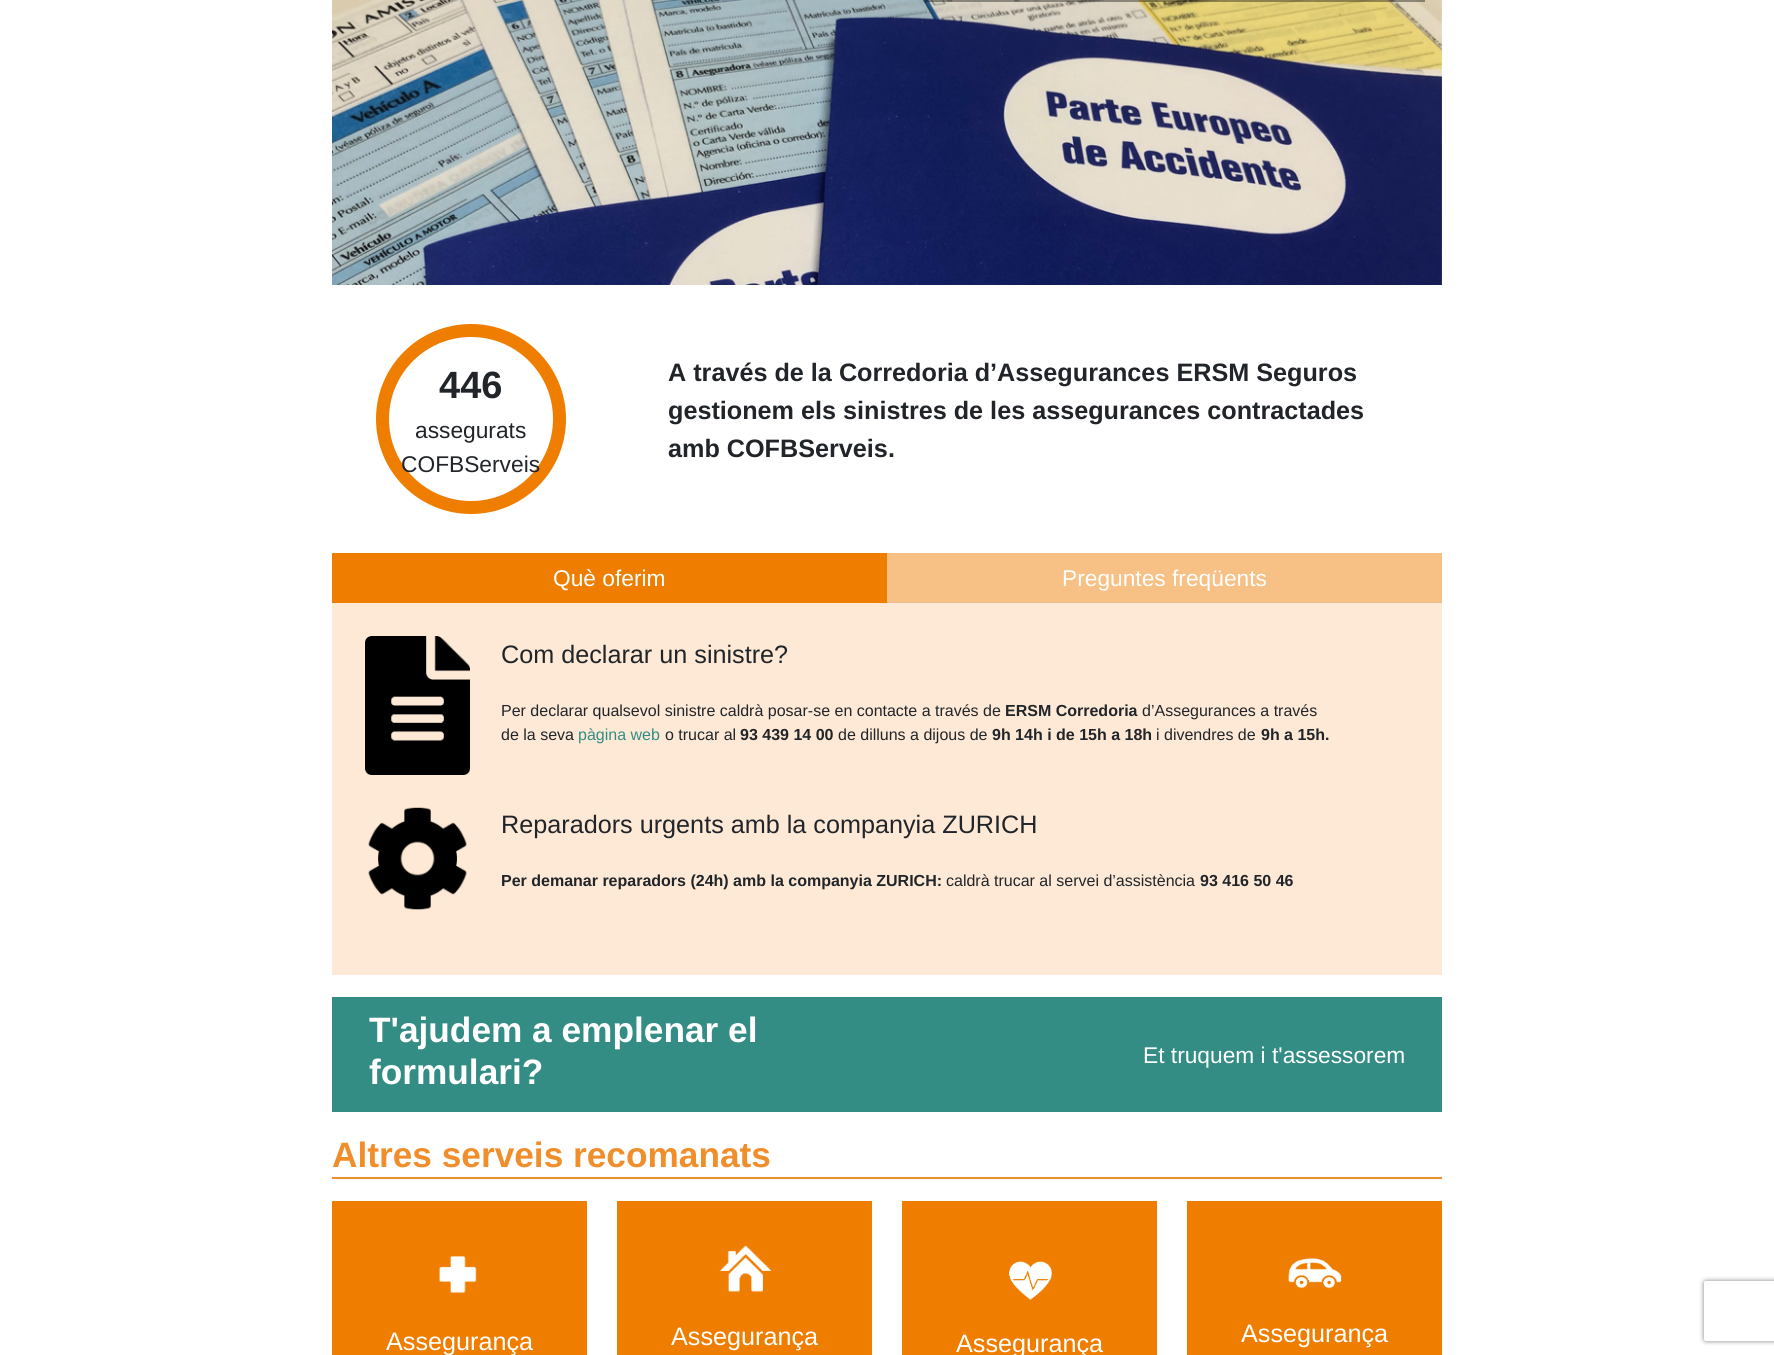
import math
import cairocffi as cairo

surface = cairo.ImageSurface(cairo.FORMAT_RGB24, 1774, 1355)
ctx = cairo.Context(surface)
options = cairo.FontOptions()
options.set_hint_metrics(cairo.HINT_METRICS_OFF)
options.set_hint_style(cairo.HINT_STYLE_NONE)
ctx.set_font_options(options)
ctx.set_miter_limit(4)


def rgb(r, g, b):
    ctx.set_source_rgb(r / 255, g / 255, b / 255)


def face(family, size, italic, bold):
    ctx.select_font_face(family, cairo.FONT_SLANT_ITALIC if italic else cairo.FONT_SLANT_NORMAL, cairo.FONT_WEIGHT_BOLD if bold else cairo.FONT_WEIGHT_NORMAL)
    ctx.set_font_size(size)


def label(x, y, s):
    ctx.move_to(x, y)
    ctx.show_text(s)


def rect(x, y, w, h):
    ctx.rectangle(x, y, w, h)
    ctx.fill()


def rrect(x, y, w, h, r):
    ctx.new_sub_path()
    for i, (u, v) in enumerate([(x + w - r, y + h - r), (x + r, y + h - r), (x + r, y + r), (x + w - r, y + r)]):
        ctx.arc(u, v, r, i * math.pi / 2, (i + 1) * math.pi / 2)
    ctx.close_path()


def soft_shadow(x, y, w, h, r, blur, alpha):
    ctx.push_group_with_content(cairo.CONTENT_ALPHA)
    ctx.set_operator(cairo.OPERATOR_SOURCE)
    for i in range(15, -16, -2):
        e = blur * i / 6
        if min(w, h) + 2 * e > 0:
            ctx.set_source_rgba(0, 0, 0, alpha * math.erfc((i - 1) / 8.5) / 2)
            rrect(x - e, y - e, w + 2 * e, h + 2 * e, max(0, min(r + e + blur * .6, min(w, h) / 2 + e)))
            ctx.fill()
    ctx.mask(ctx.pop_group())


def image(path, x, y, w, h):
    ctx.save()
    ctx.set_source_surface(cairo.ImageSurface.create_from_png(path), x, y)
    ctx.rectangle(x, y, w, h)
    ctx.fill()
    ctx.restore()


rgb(255, 255, 255)
ctx.paint()
image('image0.png', 332, 0, 1110, 285)
ctx.set_source_rgba(0.059, 0.059, 0.059, 0.4)
rect(925, 0, 500, 2)
ctx.arc(471, 419, 88.5, 0, 2 * math.pi)
rgb(238, 125, 0)
ctx.set_line_width(13)
ctx.stroke()
face('Liberation Sans', 38, 0, 1)
rgb(33, 37, 41)
label(439, 398, '446')
face('Liberation Sans', 22.75, 0, 0)
label(415, 438, 'assegurats')
label(401, 472, 'COFBServeis')
face('Liberation Sans', 25.2, 0, 1)
label(668, 381, 'A través de la Corredoria d’Assegurances ERSM Seguros')
label(668, 419, 'gestionem els sinistres de les assegurances contractades')
label(668, 457, 'amb COFBServeis.')
rgb(253, 233, 213)
rect(332, 603, 1110, 372)
rgb(247, 192, 132)
rect(887, 553, 555, 49)
rgb(228, 188, 143)
rect(887, 602, 555, 1)
rgb(238, 125, 0)
rect(332, 553, 555, 50)
face('Liberation Sans', 22.75, 0, 0)
rgb(255, 255, 255)
label(553, 586, 'Què oferim')
label(1062, 586, 'Preguntes freqüents')
image('image1.png', 365, 636, 105, 139)
face('Liberation Sans', 25.2, 0, 0)
rgb(33, 37, 41)
label(501, 663, 'Com declarar un sinistre?')
face('Liberation Sans', 16, 0, 0)
label(501, 716, 'Per declarar qualsevol sinistre caldrà posar-se en contacte a través de')
face('Liberation Sans', 16, 0, 1)
label(1005, 716, 'ERSM Corredoria')
face('Liberation Sans', 16, 0, 0)
label(1142, 716, 'd’Assegurances a través')
label(501, 740, 'de la seva')
rgb(51, 141, 133)
label(578, 740, 'pàgina web')
rgb(33, 37, 41)
label(665, 740, 'o trucar al')
face('Liberation Sans', 16, 0, 1)
label(740, 740, '93 439 14 00')
face('Liberation Sans', 16, 0, 0)
label(838, 740, 'de dilluns a dijous de')
face('Liberation Sans', 16, 0, 1)
label(992, 740, '9h 14h i de 15h a 18h')
face('Liberation Sans', 16, 0, 0)
label(1156, 740, 'i divendres de')
face('Liberation Sans', 16, 0, 1)
label(1261, 740, '9h a 15h.')
image('image2.png', 368, 807, 99, 103)
face('Liberation Sans', 25.2, 0, 0)
label(501, 833, 'Reparadors urgents amb la companyia ZURICH')
face('Liberation Sans', 16, 0, 1)
label(501, 886, 'Per demanar reparadors (24h) amb la companyia ZURICH:')
face('Liberation Sans', 16, 0, 0)
label(946, 886, 'caldrà trucar al servei d’assistència')
face('Liberation Sans', 16, 0, 1)
label(1200, 886, '93 416 50 46')
rgb(51, 141, 133)
rect(332, 997, 1110, 115)
face('Liberation Sans', 35.25, 0, 1)
rgb(255, 255, 255)
label(369, 1042, 'T\'ajudem a emplenar el')
label(369, 1084, 'formulari?')
face('Liberation Sans', 22.75, 0, 0)
label(1143, 1063, 'Et truquem i t\'assessorem')
rgb(240, 142, 43)
rect(332, 1177, 1110, 2)
face('Liberation Sans', 35.25, 0, 1)
label(332, 1167, 'Altres serveis recomanats')
rgb(238, 125, 0)
rect(332, 1201, 255, 154)
image('image3.png', 438, 1256, 39, 37)
face('Liberation Sans', 25.2, 0, 0)
rgb(255, 255, 255)
label(386, 1350, 'Assegurança')
rgb(238, 125, 0)
rect(617, 1201, 255, 154)
image('image4.png', 719, 1245, 53, 47)
rgb(255, 255, 255)
label(671, 1345, 'Assegurança')
rgb(238, 125, 0)
rect(902, 1201, 255, 154)
image('image5.png', 1009, 1261, 43, 39)
rgb(255, 255, 255)
label(956, 1352, 'Assegurança')
rgb(238, 125, 0)
rect(1187, 1201, 255, 154)
image('image6.png', 1288, 1258, 54, 31)
rgb(255, 255, 255)
label(1241, 1342, 'Assegurança')
ctx.save()
ctx.set_fill_rule(cairo.FILL_RULE_EVEN_ODD)
ctx.new_path()
ctx.move_to(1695, 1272)
ctx.line_to(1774, 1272)
ctx.line_to(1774, 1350)
ctx.line_to(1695, 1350)
ctx.close_path()
ctx.move_to(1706, 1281)
ctx.line_to(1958, 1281)
ctx.curve_to(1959, 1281, 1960, 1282, 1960, 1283)
ctx.line_to(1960, 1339)
ctx.curve_to(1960, 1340, 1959, 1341, 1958, 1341)
ctx.line_to(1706, 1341)
ctx.curve_to(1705, 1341, 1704, 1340, 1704, 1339)
ctx.line_to(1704, 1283)
ctx.curve_to(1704, 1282, 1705, 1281, 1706, 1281)
ctx.close_path()
ctx.clip()
rgb(128, 128, 128)
soft_shadow(1704, 1281, 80, 60, 2, 2.5, 1)
ctx.restore()
surface.write_to_png('render.png')
